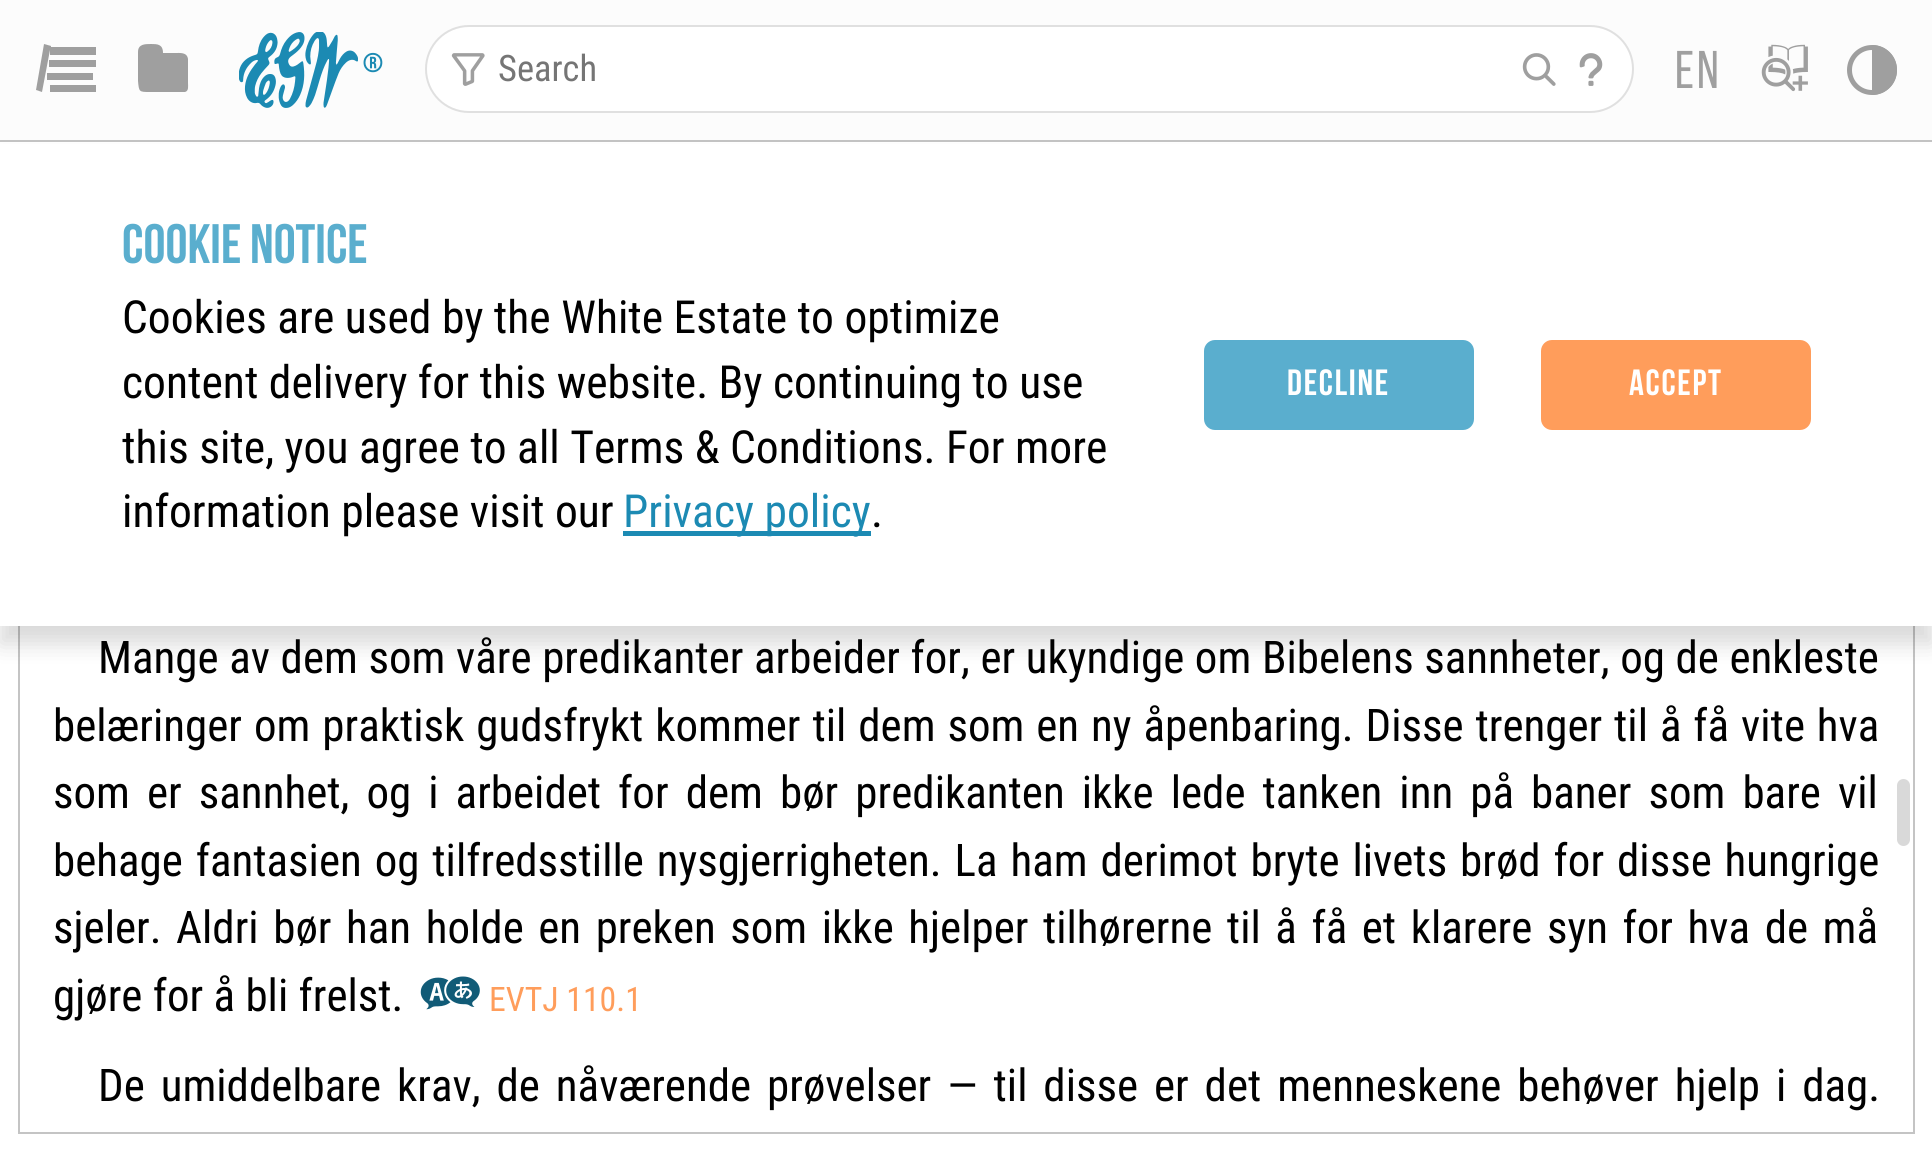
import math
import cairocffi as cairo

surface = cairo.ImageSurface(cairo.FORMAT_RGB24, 1932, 1151)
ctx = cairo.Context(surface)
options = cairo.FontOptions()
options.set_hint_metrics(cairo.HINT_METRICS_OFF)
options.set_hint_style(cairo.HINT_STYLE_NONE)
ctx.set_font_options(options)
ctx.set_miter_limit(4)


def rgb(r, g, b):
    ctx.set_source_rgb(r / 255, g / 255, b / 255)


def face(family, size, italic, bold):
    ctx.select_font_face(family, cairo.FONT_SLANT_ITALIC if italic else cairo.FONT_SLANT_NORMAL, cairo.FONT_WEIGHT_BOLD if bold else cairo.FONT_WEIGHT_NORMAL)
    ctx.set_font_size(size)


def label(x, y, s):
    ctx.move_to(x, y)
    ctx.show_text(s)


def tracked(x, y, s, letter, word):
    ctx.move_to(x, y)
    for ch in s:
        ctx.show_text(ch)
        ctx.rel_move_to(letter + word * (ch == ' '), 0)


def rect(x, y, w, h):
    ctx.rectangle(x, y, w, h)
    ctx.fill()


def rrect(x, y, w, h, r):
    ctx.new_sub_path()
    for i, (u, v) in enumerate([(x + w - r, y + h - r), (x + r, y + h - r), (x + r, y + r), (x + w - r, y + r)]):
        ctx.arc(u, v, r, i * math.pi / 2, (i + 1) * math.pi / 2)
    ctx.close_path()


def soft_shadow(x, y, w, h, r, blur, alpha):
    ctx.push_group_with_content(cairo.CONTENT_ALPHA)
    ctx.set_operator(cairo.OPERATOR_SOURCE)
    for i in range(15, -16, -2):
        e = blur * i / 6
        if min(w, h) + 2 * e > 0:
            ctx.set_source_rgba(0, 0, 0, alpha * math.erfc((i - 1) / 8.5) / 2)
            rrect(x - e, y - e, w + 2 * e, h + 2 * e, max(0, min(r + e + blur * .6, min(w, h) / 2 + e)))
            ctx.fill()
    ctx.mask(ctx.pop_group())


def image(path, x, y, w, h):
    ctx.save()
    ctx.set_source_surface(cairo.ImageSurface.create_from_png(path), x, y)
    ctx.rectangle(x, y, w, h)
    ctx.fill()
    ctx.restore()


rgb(255, 255, 255)
ctx.paint()
rgb(252, 252, 252)
rect(0, 0, 1932, 140)
rgb(196, 196, 196)
rect(0, 140, 1932, 2)
rgb(159, 159, 159)
ctx.new_path()
ctx.move_to(51, 46)
ctx.line_to(51, 47)
ctx.line_to(96, 47)
ctx.line_to(96, 55)
ctx.line_to(50, 55)
ctx.line_to(50, 50)
ctx.line_to(42, 92)
ctx.line_to(36, 90)
ctx.line_to(44, 44)
ctx.close_path()
ctx.move_to(96, 60)
ctx.line_to(49, 60)
ctx.line_to(49, 67)
ctx.line_to(96, 67)
ctx.close_path()
ctx.move_to(47, 73)
ctx.line_to(93, 73)
ctx.line_to(93, 80)
ctx.line_to(47, 80)
ctx.close_path()
ctx.move_to(50, 85)
ctx.line_to(96, 85)
ctx.line_to(96, 92)
ctx.line_to(50, 92)
ctx.close_path()
ctx.fill()
ctx.new_path()
ctx.move_to(138, 52)
ctx.curve_to(138, 44, 145, 44, 151, 44)
ctx.curve_to(157, 44, 163, 44, 163, 53)
ctx.line_to(175, 53)
ctx.curve_to(180, 53, 187, 52, 188, 59)
ctx.line_to(188, 83)
ctx.curve_to(188, 86, 189, 91, 185, 92)
ctx.line_to(150, 92)
ctx.curve_to(139, 92, 139, 92, 138, 81)
ctx.close_path()
ctx.fill()
image('image0.png', 239, 32, 119, 76)
face('Bebas Neue', 27, 0, 1)
rgb(28, 138, 179)
tracked(363, 72, '®', 3, 0)
rgb(255, 255, 255)
rrect(426, 26, 1207, 86, 43)
ctx.fill_preserve()
rgb(224, 224, 224)
ctx.stroke()
image('image1.png', 451, 53, 34, 33)
face('Roboto Condensed', 36.5, 0, 0)
rgb(117, 117, 117)
label(498, 81, 'Search')
image('image2.png', 1522, 53, 34, 33)
image('image3.png', 1579, 53, 24, 33)
face('Bebas Neue', 53, 0, 0)
rgb(159, 159, 159)
tracked(1675, 88, 'en', 3, 0)
image('image4.png', 1761, 44, 47, 48)
ctx.arc(1872, 70, 22.5, 0, 2 * math.pi)
ctx.set_line_width(5)
ctx.stroke()
ctx.new_path()
ctx.move_to(1872, 45)
ctx.curve_to(1886, 45, 1897, 56, 1897, 70)
ctx.curve_to(1897, 84, 1886, 95, 1872, 95)
ctx.close_path()
ctx.fill()
image('image5.png', 420, 976, 60, 34)
rgb(217, 217, 217)
rrect(1897, 779, 13, 67, 6.5)
ctx.fill()
ctx.rectangle(19, 309, 1895, 824)
rgb(196, 196, 196)
ctx.set_line_width(2)
ctx.stroke()
rgb(0, 0, 0)
soft_shadow(0, 160, 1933, 484, 0, 11, 0.15)
rgb(255, 255, 255)
rect(0, 144, 1932, 482)
face('Bebas Neue', 55.5, 0, 1)
rgb(90, 174, 206)
label(122, 263, 'Cookie Notice')
face('Roboto Condensed', 45.6, 0, 0)
rgb(0, 0, 0)
label(122, 333, 'Cookies are used by the White Estate to optimize')
label(122, 398, 'content delivery for this website. By continuing to use')
label(122, 463, 'this site, you agree to all Terms & Conditions. For more')
label(122, 527, 'information please visit our')
rgb(28, 138, 179)
rect(623, 531, 248, 5)
label(623, 527, 'Privacy policy')
rgb(0, 0, 0)
label(871, 527, '.')
rgb(90, 174, 206)
rrect(1205, 341, 268, 88, 10)
ctx.fill_preserve()
ctx.stroke()
face('Bebas Neue', 36.5, 0, 1)
rgb(255, 255, 255)
tracked(1287, 395, 'Decline', 1.75, 0)
rgb(255, 157, 91)
rrect(1542, 341, 268, 88, 10)
ctx.fill_preserve()
ctx.stroke()
rgb(255, 255, 255)
tracked(1629, 395, 'Accept', 1.75, 0)
face('Roboto Condensed', 45, 0, 0)
rgb(0, 0, 0)
tracked(98, 673, 'Mange av dem som våre predikanter arbeider for, er ukyndige om Bibelens sannheter, og de enkleste', 0, 0.3)
tracked(53, 741, 'belæringer om praktisk gudsfrykt kommer til dem som en ny åpenbaring. Disse trenger til å få vite hva', 0, 1.6)
tracked(53, 808, 'som er sannhet, og i arbeidet for dem bør predikanten ikke lede tanken inn på baner som bare vil', 0, 6.75)
tracked(53, 876, 'behage fantasien og tilfredsstille nysgjerrigheten. La ham derimot bryte livets brød for disse hungrige', 0, 2.6)
tracked(53, 943, 'sjeler. Aldri bør han holde en preken som ikke hjelper tilhørerne til å få et klarere syn for hva de må', 0, 4.25)
label(53, 1011, 'gjøre for å bli frelst.')
face('Roboto Condensed', 33.75, 0, 0)
rgb(255, 157, 91)
label(489, 1011, 'EVTJ 110.1')
face('Roboto Condensed', 45, 0, 0)
rgb(0, 0, 0)
tracked(98, 1101, 'De umiddelbare krav, de nåværende prøvelser — til disse er det menneskene behøver hjelp i dag.', 0, 5.6)
surface.write_to_png('render.png')
